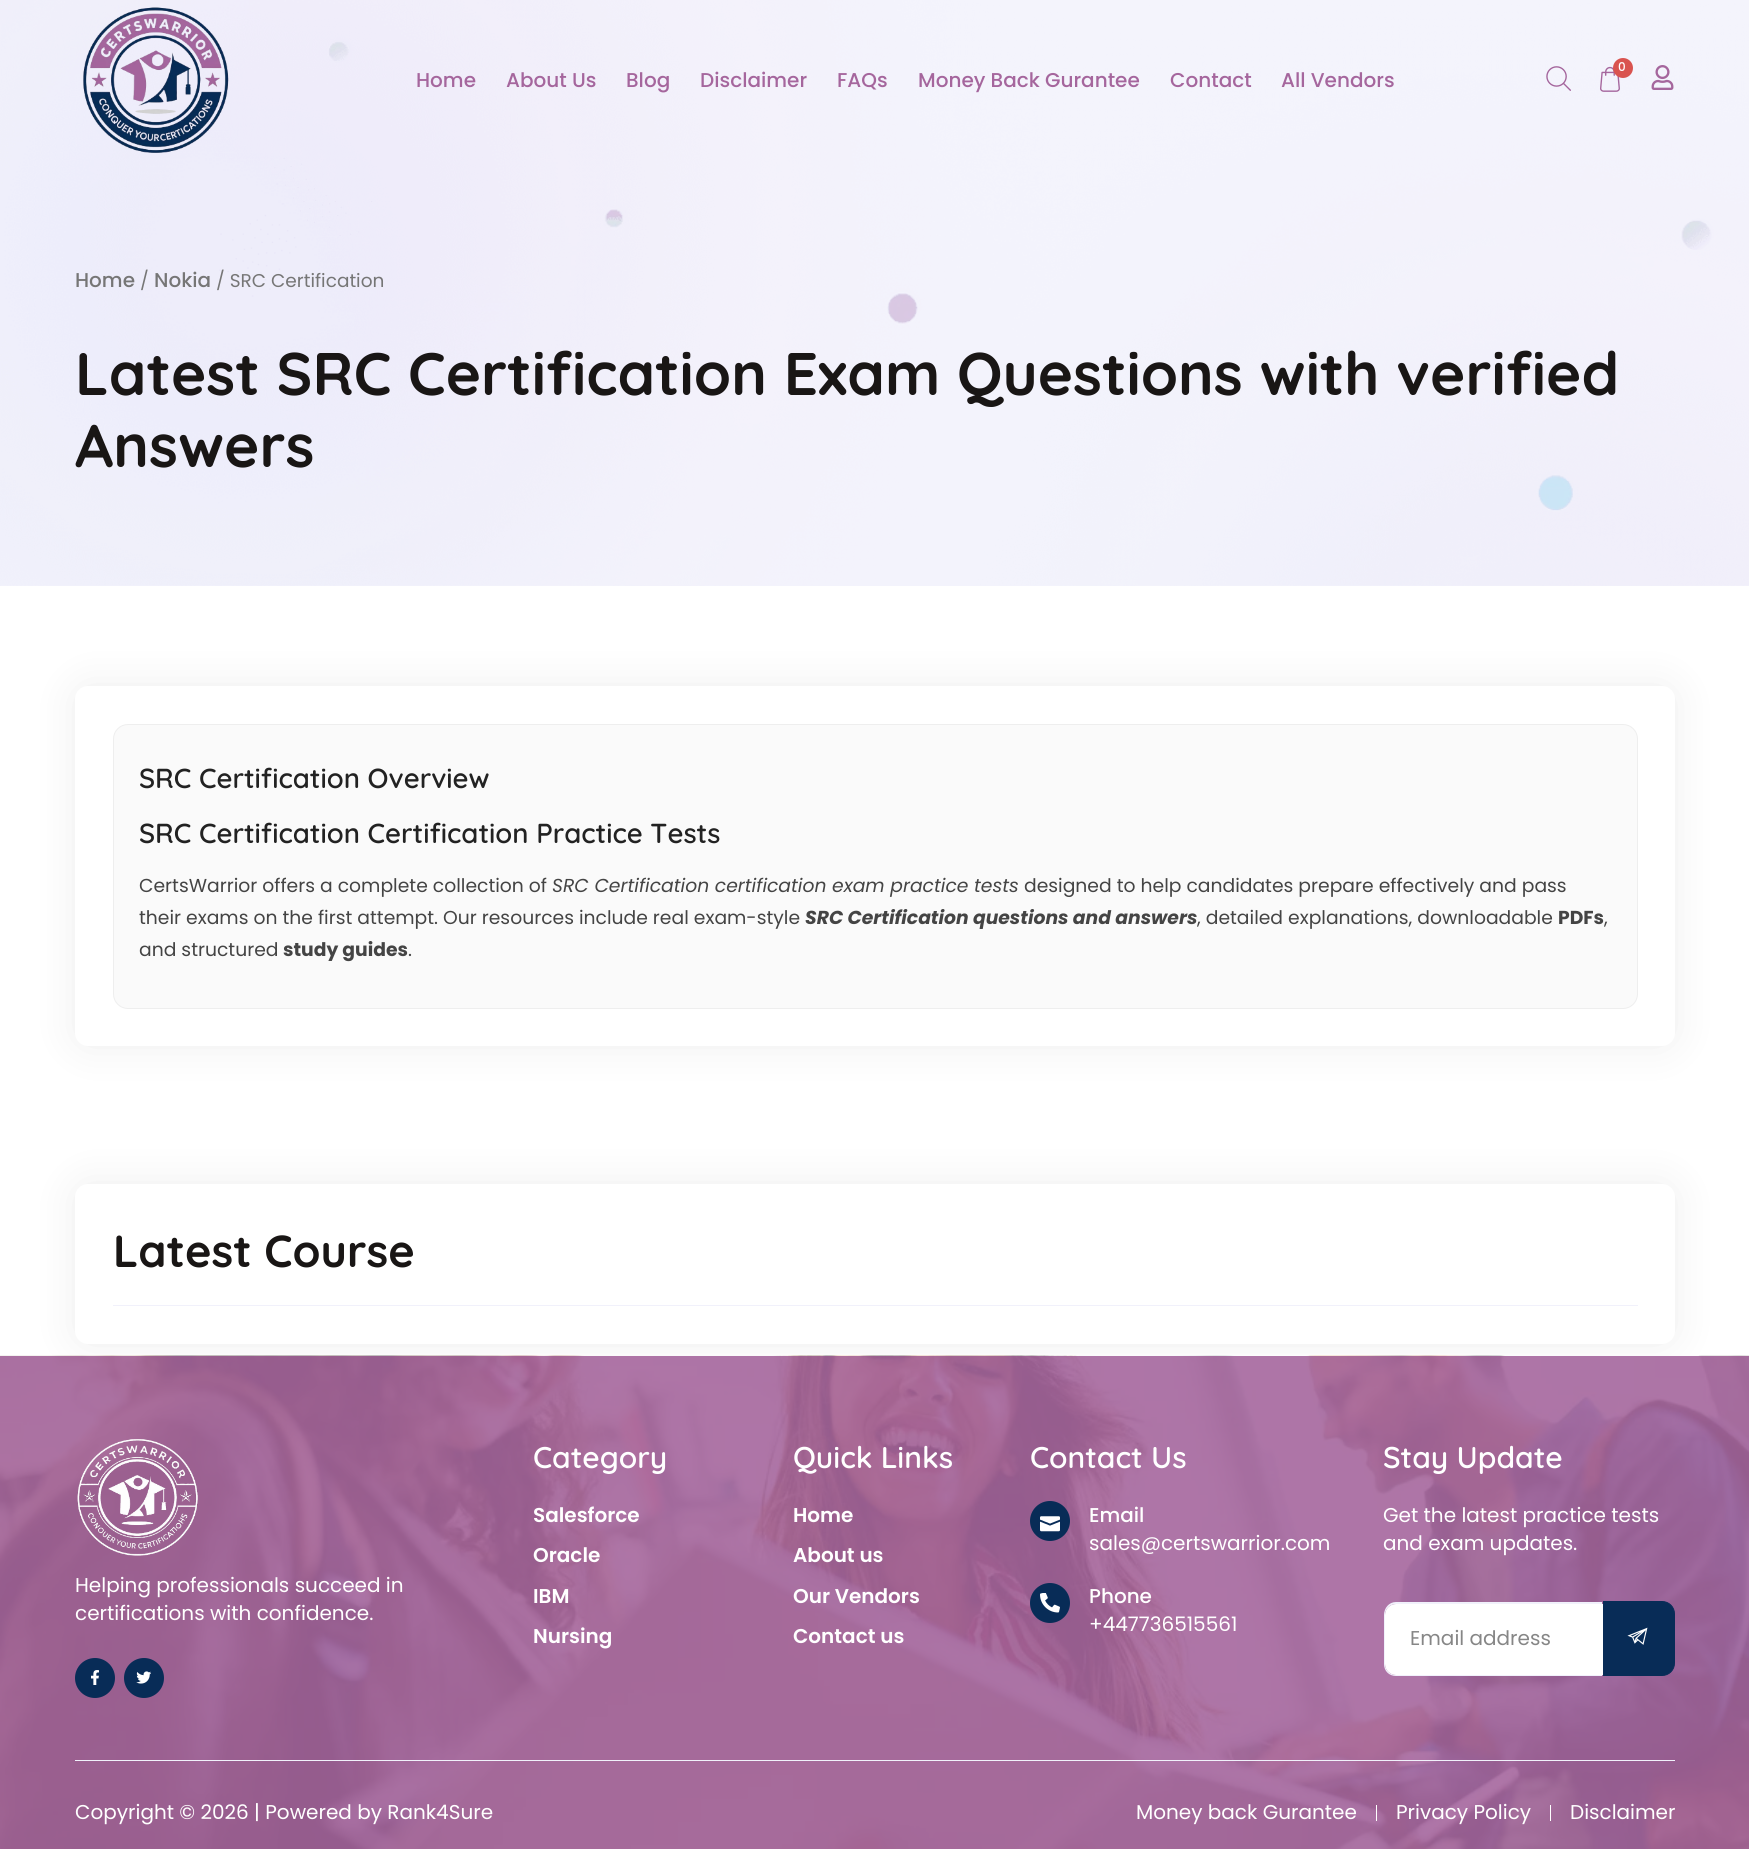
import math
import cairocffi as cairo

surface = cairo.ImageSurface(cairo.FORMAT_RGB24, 1749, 1849)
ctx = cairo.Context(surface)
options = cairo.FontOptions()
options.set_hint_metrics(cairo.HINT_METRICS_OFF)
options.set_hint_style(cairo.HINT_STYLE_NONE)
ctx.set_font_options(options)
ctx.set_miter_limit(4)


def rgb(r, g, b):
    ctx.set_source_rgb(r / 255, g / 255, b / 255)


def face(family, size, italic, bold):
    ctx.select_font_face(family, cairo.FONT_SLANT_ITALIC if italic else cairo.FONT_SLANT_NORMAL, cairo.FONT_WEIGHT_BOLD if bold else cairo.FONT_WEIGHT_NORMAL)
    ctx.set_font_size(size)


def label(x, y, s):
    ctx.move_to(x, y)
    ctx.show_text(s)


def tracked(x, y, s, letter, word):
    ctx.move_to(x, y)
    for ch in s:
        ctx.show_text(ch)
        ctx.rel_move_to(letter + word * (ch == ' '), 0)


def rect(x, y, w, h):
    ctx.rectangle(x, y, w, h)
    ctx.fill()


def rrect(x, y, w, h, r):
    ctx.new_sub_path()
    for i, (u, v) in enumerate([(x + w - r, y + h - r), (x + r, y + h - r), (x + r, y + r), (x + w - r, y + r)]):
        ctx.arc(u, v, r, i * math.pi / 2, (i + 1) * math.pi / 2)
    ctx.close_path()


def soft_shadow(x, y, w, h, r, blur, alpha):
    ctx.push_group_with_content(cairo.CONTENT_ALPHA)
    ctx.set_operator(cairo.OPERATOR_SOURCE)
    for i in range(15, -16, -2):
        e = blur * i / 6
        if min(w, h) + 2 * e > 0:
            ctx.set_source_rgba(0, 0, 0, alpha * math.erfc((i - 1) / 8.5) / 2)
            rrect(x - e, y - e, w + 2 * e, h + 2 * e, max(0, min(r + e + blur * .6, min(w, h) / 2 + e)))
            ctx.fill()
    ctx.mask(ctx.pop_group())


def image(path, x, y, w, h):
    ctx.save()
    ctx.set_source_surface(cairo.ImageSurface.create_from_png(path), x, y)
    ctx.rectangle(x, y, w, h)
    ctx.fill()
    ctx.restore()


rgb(255, 255, 255)
ctx.paint()
rgb(244, 244, 252)
rect(0, 0, 1749, 586)
image('image4.png', 0, 0, 1749, 586)
image('image0.png', 83, 7, 146, 146)
image('image1.png', 1546, 66, 25, 25)
image('image2.png', 1600, 66, 20, 26)
rgb(217, 83, 79)
ctx.arc(1623, 68, 10, 0, 2 * math.pi)
ctx.fill()
face('Poppins Medium', 12, 0, 0)
rgb(255, 255, 255)
tracked(1618, 71, '0', 2, 0)
image('image3.png', 1651, 65, 23, 25)
face('Poppins Medium', 20, 0, 0)
rgb(165, 102, 157)
label(416, 87, 'Home')
label(506, 87, 'About Us')
label(626, 87, 'Blog')
label(700, 87, 'Disclaimer')
label(837, 87, 'FAQs')
label(918, 87, 'Money Back Gurantee')
label(1170, 87, 'Contact')
label(1281, 87, 'All Vendors')
rgb(118, 118, 118)
label(75, 287, 'Home')
face('Poppins', 18.5, 0, 0)
label(140, 287, '/')
face('Poppins Medium', 20, 0, 0)
label(154, 287, 'Nokia')
face('Poppins', 18.5, 0, 0)
label(216, 287, '/ SRC Certification')
face('Quicksand', 60, 0, 1)
rgb(25, 22, 21)
label(75, 395, 'Latest SRC Certification Exam Questions with verified')
label(75, 467, 'Answers')
rgb(220, 220, 220)
soft_shadow(75, 686, 1600, 360, 13, 19, 0.5)
rgb(255, 255, 255)
rrect(75, 686, 1600, 360, 13)
ctx.fill()
rgb(250, 250, 250)
rrect(113.5, 724.5, 1524, 284, 14.5)
ctx.fill_preserve()
rgb(238, 238, 238)
ctx.set_line_width(1)
ctx.stroke()
face('Quicksand SemiBold', 27.5, 0, 0)
rgb(34, 34, 34)
label(139, 788, 'SRC Certification Overview')
label(139, 843, 'SRC Certification Certification Practice Tests')
face('Poppins', 18.75, 0, 0)
rgb(68, 68, 68)
label(139, 892, 'CertsWarrior offers a complete collection of')
face('Poppins', 18.75, 1, 0)
label(552, 892, 'SRC Certification certification exam practice tests')
face('Poppins', 18.75, 0, 0)
label(1024, 892, 'designed to help candidates prepare effectively and pass')
label(139, 924, 'their exams on the first attempt. Our resources include real exam-style')
face('Poppins', 18.75, 1, 1)
label(805, 924, 'SRC Certification questions and answers')
face('Poppins', 18.75, 0, 0)
label(1197, 924, ', detailed explanations, downloadable')
face('Poppins', 18.75, 0, 1)
label(1558, 924, 'PDFs')
face('Poppins', 18.75, 0, 0)
label(1604, 924, ',')
label(139, 956, 'and structured')
face('Poppins', 18.75, 0, 1)
label(283, 956, 'study guides')
face('Poppins', 18.75, 0, 0)
label(408, 956, '.')
rgb(220, 220, 220)
soft_shadow(75, 1184, 1600, 160, 13, 19, 0.5)
rgb(255, 255, 255)
rrect(75, 1184, 1600, 160, 13)
ctx.fill()
face('Quicksand', 45, 0, 1)
rgb(25, 22, 21)
label(113, 1267, 'Latest Course')
rgb(241, 241, 251)
rect(113, 1305, 1525, 1)
image('image5.png', 0, 1355, 1749, 494)
image('image6.png', 77, 1439, 121, 117)
face('Poppins', 20, 0, 0)
rgb(255, 255, 255)
label(75, 1592, 'Helping professionals succeed in')
label(75, 1620, 'certifications with confidence.')
rgb(8, 44, 87)
ctx.new_path()
ctx.arc(95, 1678, 20, 0, 2 * math.pi)
ctx.fill()
image('image7.png', 91, 1670, 8, 15)
ctx.arc(144, 1678, 20, 0, 2 * math.pi)
ctx.fill()
image('image8.png', 136, 1671, 15, 13)
face('Quicksand SemiBold', 30, 0, 0)
rgb(255, 255, 255)
label(533, 1468, 'Category')
face('Poppins SemiBold', 20, 0, 0)
label(533, 1522, 'Salesforce')
label(533, 1562, 'Oracle')
label(533, 1603, 'IBM')
label(533, 1643, 'Nursing')
face('Quicksand SemiBold', 30, 0, 0)
label(793, 1468, 'Quick Links')
face('Poppins SemiBold', 20, 0, 0)
label(793, 1522, 'Home')
label(793, 1562, 'About us')
label(793, 1603, 'Our Vendors')
label(793, 1643, 'Contact us')
face('Quicksand SemiBold', 30, 0, 0)
label(1030, 1468, 'Contact Us')
rgb(8, 44, 87)
ctx.new_path()
ctx.arc(1050, 1521, 20, 0, 2 * math.pi)
ctx.fill()
image('image9.png', 1040, 1516, 20, 16)
face('Poppins Medium', 20, 0, 0)
rgb(255, 255, 255)
label(1089, 1522, 'Email')
face('Poppins', 20, 0, 0)
label(1089, 1550, 'sales@certswarrior.com')
rgb(8, 44, 87)
ctx.new_path()
ctx.arc(1050, 1603, 20, 0, 2 * math.pi)
ctx.fill()
image('image10.png', 1040, 1593, 20, 20)
face('Poppins Medium', 20, 0, 0)
rgb(255, 255, 255)
label(1089, 1603, 'Phone')
face('Poppins', 20, 0, 0)
label(1089, 1631, '+447736515561')
face('Quicksand SemiBold', 30, 0, 0)
label(1383, 1468, 'Stay Update')
face('Poppins', 20, 0, 0)
label(1383, 1522, 'Get the latest practice tests')
label(1383, 1550, 'and exam updates.')
ctx.new_path()
ctx.move_to(1396, 1604)
ctx.line_to(1603, 1604)
ctx.line_to(1603, 1675)
ctx.line_to(1396, 1675)
ctx.curve_to(1390, 1675, 1385, 1670, 1385, 1664)
ctx.line_to(1385, 1615)
ctx.curve_to(1385, 1609, 1390, 1604, 1396, 1604)
ctx.close_path()
ctx.fill()
rgb(241, 241, 251)
ctx.set_fill_rule(cairo.FILL_RULE_EVEN_ODD)
ctx.new_path()
ctx.move_to(1396, 1602)
ctx.line_to(1602, 1602)
ctx.line_to(1602, 1676)
ctx.line_to(1396, 1676)
ctx.curve_to(1389, 1676, 1384, 1671, 1384, 1664)
ctx.line_to(1384, 1615)
ctx.curve_to(1384, 1608, 1389, 1602, 1396, 1602)
ctx.close_path()
ctx.move_to(1396, 1604)
ctx.line_to(1602, 1604)
ctx.line_to(1602, 1675)
ctx.line_to(1396, 1675)
ctx.curve_to(1390, 1675, 1385, 1670, 1385, 1664)
ctx.line_to(1385, 1615)
ctx.curve_to(1385, 1609, 1390, 1604, 1396, 1604)
ctx.close_path()
ctx.fill()
rgb(134, 134, 134)
label(1410, 1645, 'Email address')
rgb(8, 44, 87)
ctx.new_path()
ctx.move_to(1603.5, 1601.5)
ctx.line_to(1662, 1601.5)
ctx.curve_to(1669, 1601.5, 1674.5, 1607, 1674.5, 1614)
ctx.line_to(1674.5, 1663)
ctx.curve_to(1674.5, 1670, 1669, 1675.5, 1662, 1675.5)
ctx.line_to(1603.5, 1675.5)
ctx.close_path()
ctx.fill_preserve()
ctx.stroke()
image('image11.png', 1627, 1627, 21, 18)
rgb(241, 241, 251)
rect(75, 1760, 1600, 1)
rgb(255, 255, 255)
label(75, 1819, 'Copyright © 2026 | Powered by Rank4Sure')
label(1136, 1819, 'Money back Gurantee')
rect(1376, 1805, 1, 16)
label(1396, 1819, 'Privacy Policy')
rect(1550, 1805, 1, 16)
label(1570, 1819, 'Disclaimer')
surface.write_to_png('render.png')
